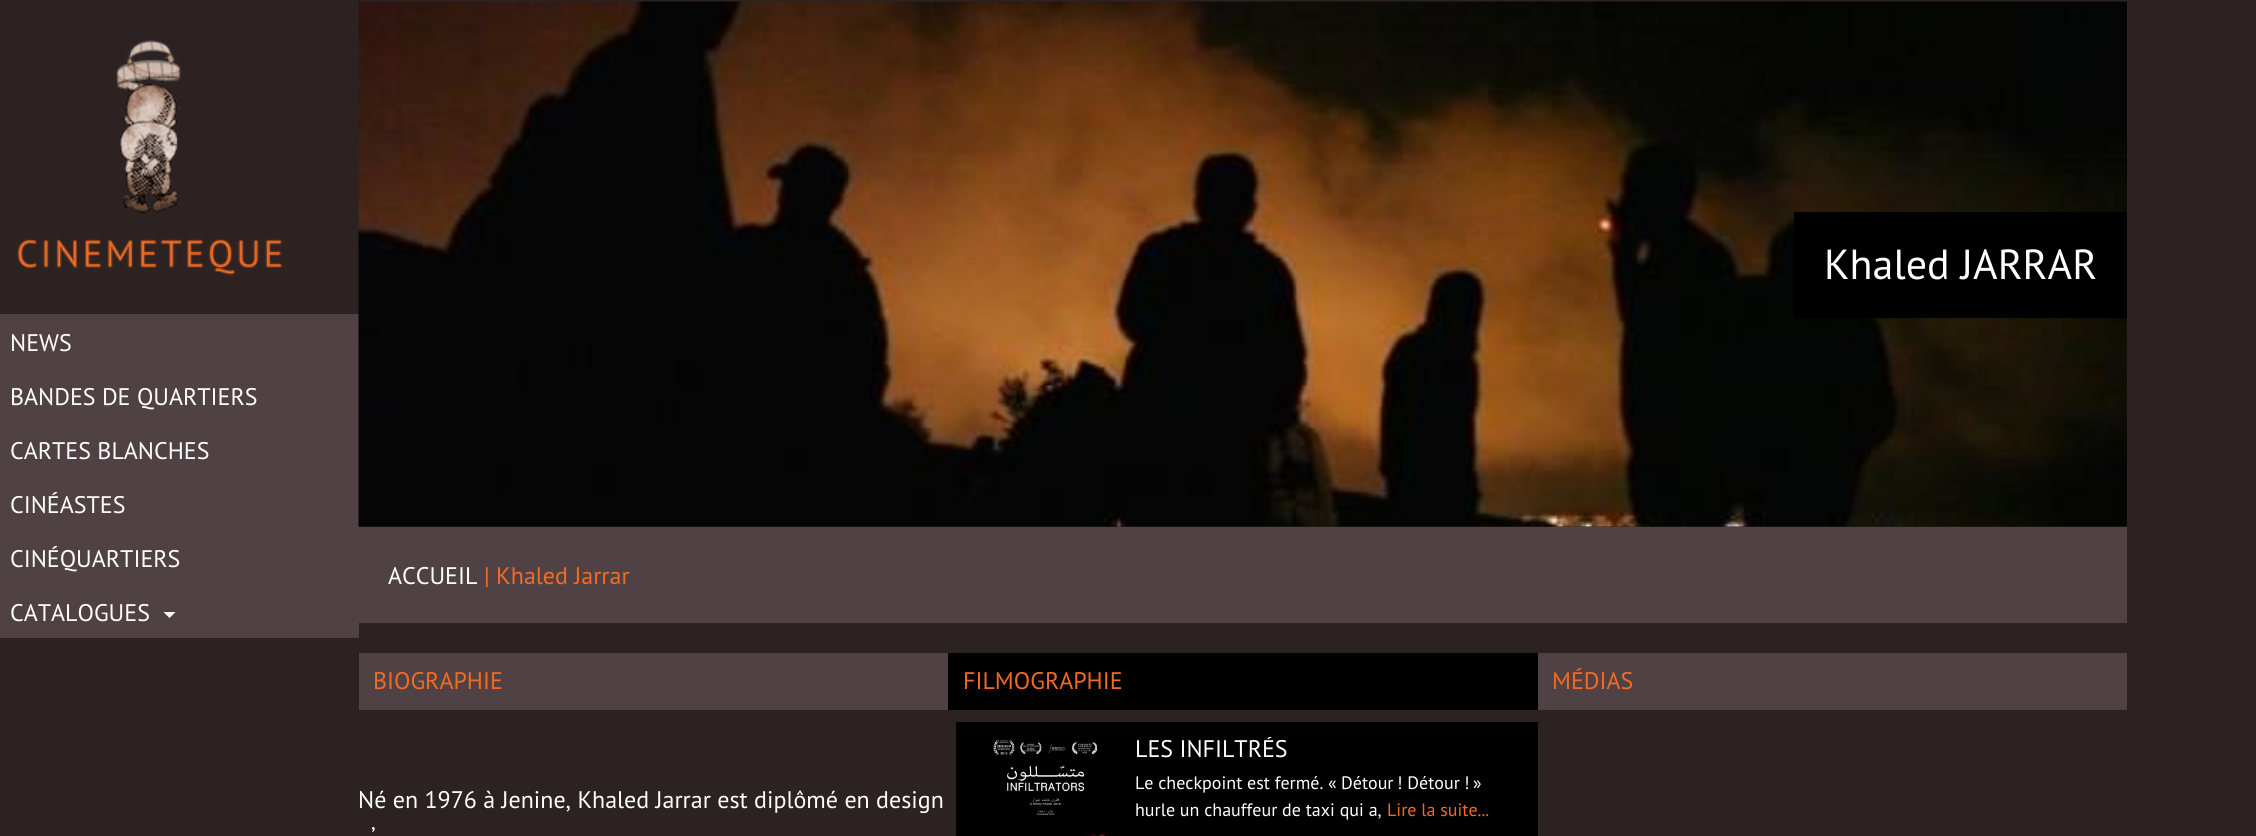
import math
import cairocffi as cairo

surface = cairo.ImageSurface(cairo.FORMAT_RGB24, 2256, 836)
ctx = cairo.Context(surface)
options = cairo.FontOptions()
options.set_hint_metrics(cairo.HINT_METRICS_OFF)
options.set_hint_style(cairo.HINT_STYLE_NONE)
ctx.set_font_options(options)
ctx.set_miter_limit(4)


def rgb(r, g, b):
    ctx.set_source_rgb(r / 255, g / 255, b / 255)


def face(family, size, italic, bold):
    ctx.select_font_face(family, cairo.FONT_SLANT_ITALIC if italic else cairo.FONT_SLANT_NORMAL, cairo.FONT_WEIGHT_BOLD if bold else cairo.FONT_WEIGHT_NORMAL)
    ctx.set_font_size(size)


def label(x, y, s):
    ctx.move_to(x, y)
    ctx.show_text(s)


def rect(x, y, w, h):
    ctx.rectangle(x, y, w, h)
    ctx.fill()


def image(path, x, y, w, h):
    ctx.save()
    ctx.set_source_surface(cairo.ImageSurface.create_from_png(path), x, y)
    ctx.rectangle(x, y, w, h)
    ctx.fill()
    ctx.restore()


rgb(45, 34, 34)
ctx.paint()
image('image0.png', 15, 40, 270, 237)
rgb(80, 66, 68)
rect(0, 314, 359, 324)
face('PT Sans', 24, 0, 0)
rgb(255, 255, 255)
label(10, 351, 'NEWS')
label(10, 405, 'BANDES DE QUARTIERS')
label(10, 459, 'CARTES BLANCHES')
label(10, 513, 'CINÉASTES')
label(10, 567, 'CINÉQUARTIERS')
label(10, 621, 'CATALOGUES')
ctx.new_path()
ctx.move_to(163.5, 612)
ctx.line_to(175.5, 612)
ctx.line_to(169.5, 618)
ctx.close_path()
ctx.fill()
image('image1.png', 358, 1, 1769, 526)
rgb(0, 0, 0)
rect(1794, 212, 333, 106)
face('PT Sans', 42, 0, 0)
rgb(255, 255, 255)
label(1824, 279, 'Khaled JARRAR')
rgb(80, 66, 68)
rect(359, 527, 1768, 96)
face('PT Sans', 24, 0, 0)
rgb(255, 255, 255)
label(388, 584, 'ACCUEIL')
rgb(243, 106, 34)
label(484, 584, '| Khaled Jarrar')
rgb(80, 66, 68)
ctx.new_path()
ctx.move_to(1684, 622)
ctx.line_to(1684, 526)
ctx.line_to(1732, 574)
ctx.close_path()
ctx.fill()
rect(359, 653, 589, 57)
rgb(243, 106, 34)
label(373, 689, 'BIOGRAPHIE')
rgb(255, 255, 255)
label(358, 808, 'Né en 1976 à Jenine, Khaled Jarrar est diplômé en design')
label(371, 844, '’')
rgb(0, 0, 0)
rect(948, 653, 590, 57)
rgb(243, 106, 34)
label(963, 689, 'FILMOGRAPHIE')
rgb(0, 0, 0)
rect(956, 722, 582, 114)
image('image2.png', 993, 740, 113, 96)
ctx.save()
ctx.rectangle(1136, 737, 387, 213)
ctx.clip()
rgb(255, 255, 255)
label(1135, 757, 'LES INFILTRÉS')
ctx.restore()
face('PT Sans', 18, 0, 0)
rgb(255, 255, 255)
label(1135, 789, 'Le checkpoint est fermé. «')
label(1341, 789, 'Détour')
label(1397, 789, '! Détour')
label(1464, 789, '!')
label(1473, 789, '»')
label(1135, 816, 'hurle un chauffeur de taxi qui a,')
rgb(243, 106, 34)
label(1387, 816, 'Lire la suite...')
rgb(80, 66, 68)
rect(1538, 653, 589, 57)
face('PT Sans', 24, 0, 0)
rgb(243, 106, 34)
label(1552, 689, 'MÉDIAS')
surface.write_to_png('render.png')
